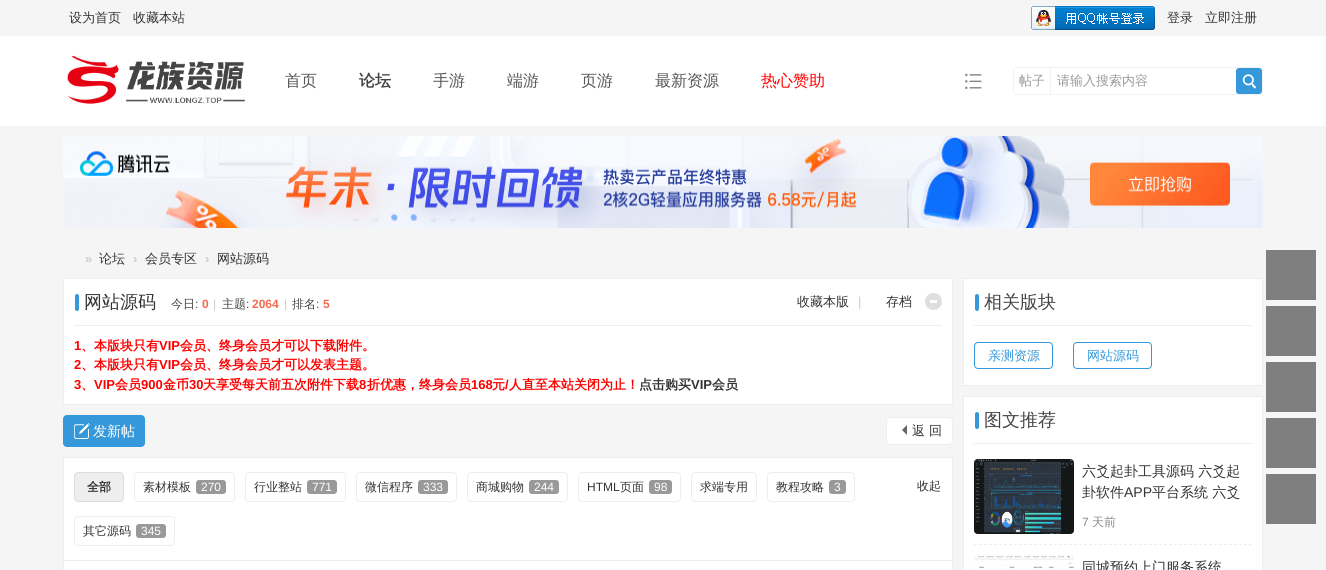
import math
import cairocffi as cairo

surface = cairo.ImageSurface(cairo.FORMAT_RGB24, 1326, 570)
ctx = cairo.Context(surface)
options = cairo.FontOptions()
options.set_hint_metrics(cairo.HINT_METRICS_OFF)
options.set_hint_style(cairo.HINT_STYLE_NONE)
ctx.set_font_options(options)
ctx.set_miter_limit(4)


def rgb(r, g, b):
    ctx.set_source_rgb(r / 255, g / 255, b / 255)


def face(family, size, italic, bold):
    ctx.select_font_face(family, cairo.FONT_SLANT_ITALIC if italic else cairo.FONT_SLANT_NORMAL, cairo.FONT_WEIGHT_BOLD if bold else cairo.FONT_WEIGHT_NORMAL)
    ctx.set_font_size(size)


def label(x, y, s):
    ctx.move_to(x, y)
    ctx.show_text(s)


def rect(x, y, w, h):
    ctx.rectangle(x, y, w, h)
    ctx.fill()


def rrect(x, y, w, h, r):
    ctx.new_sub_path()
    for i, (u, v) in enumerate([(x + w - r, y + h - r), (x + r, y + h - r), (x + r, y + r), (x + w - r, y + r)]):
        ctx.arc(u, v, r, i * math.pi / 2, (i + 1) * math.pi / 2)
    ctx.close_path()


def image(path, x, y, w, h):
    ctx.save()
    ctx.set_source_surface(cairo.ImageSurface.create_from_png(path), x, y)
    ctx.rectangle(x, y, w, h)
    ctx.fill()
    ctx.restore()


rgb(245, 245, 245)
ctx.paint()
face('WenQuanYi Zen Hei Medium', 13, 0, 0)
rgb(51, 51, 51)
label(69, 22, '设为首页')
label(133, 22, '收藏本站')
image('image0.png', 1031, 6, 124, 24)
label(1167, 22, '登录')
label(1205, 22, '立即注册')
rgb(255, 255, 255)
rect(0, 36, 1326, 90)
image('image1.png', 67, 55, 178, 49)
face('WenQuanYi Zen Hei Medium', 16, 0, 0)
rgb(85, 85, 85)
label(285, 86, '首页')
face('WenQuanYi Zen Hei', 16, 0, 1)
rgb(68, 68, 68)
label(359, 86, '论坛')
face('WenQuanYi Zen Hei Medium', 16, 0, 0)
rgb(85, 85, 85)
label(433, 86, '手游')
label(507, 86, '端游')
label(581, 86, '页游')
label(655, 86, '最新资源')
rgb(255, 0, 0)
label(761, 86, '热心赞助')
image('image2.png', 965, 73, 17, 17)
rrect(1013.5, 67.5, 249, 27, 3.5)
rgb(242, 242, 242)
ctx.set_line_width(1)
ctx.stroke()
rgb(255, 255, 255)
ctx.new_path()
ctx.move_to(1017, 68)
ctx.line_to(1051, 68)
ctx.line_to(1051, 94)
ctx.line_to(1017, 94)
ctx.curve_to(1015.5, 94, 1014, 92.5, 1014, 91)
ctx.line_to(1014, 71)
ctx.curve_to(1014, 69.5, 1015.5, 68, 1017, 68)
ctx.close_path()
ctx.fill()
rgb(242, 242, 242)
rect(1050, 68, 1, 26)
face('WenQuanYi Zen Hei Medium', 13, 0, 0)
rgb(153, 153, 153)
label(1019, 85, '帖子')
label(1057, 85, '请输入搜索内容')
rgb(52, 152, 219)
rrect(1236, 68, 26, 26, 3)
ctx.fill()
image('image3.png', 1242, 74, 15, 15)
image('image4.png', 63, 136, 1200, 92)
face('Liberation Sans', 13, 0, 0)
rgb(189, 189, 189)
label(85, 263, '»')
face('WenQuanYi Zen Hei Medium', 13, 0, 0)
rgb(51, 51, 51)
label(99, 263, '论坛')
face('Liberation Sans', 13, 0, 0)
rgb(189, 189, 189)
label(133, 263, '›')
face('WenQuanYi Zen Hei Medium', 13, 0, 0)
rgb(51, 51, 51)
label(145, 263, '会员专区')
face('Liberation Sans', 13, 0, 0)
rgb(189, 189, 189)
label(205, 263, '›')
face('WenQuanYi Zen Hei Medium', 13, 0, 0)
rgb(51, 51, 51)
label(217, 263, '网站源码')
rgb(255, 255, 255)
ctx.rectangle(63.5, 278.5, 889, 126)
ctx.fill_preserve()
rgb(238, 238, 238)
ctx.stroke()
rect(74, 325, 868, 1)
rgb(52, 152, 219)
rrect(75, 294, 4, 17, 2)
ctx.fill()
face('WenQuanYi Zen Hei Medium', 18, 0, 0)
rgb(51, 51, 51)
label(84, 308, '网站源码')
face('WenQuanYi Zen Hei Medium', 12, 0, 0)
rgb(68, 68, 68)
label(171, 308, '今日')
face('Liberation Sans', 12, 0, 0)
label(195, 308, ':')
face('Liberation Sans', 12, 0, 1)
rgb(242, 108, 79)
label(202, 308, '0')
face('Liberation Sans', 12, 0, 0)
rgb(204, 204, 204)
label(213, 308, '|')
face('WenQuanYi Zen Hei Medium', 12, 0, 0)
rgb(68, 68, 68)
label(222, 308, '主题')
face('Liberation Sans', 12, 0, 0)
label(246, 308, ':')
face('Liberation Sans', 12, 0, 1)
rgb(242, 108, 79)
label(252, 308, '2064')
face('Liberation Sans', 12, 0, 0)
rgb(204, 204, 204)
label(284, 308, '|')
face('WenQuanYi Zen Hei Medium', 12, 0, 0)
rgb(68, 68, 68)
label(292, 308, '排名')
face('Liberation Sans', 12, 0, 0)
label(316, 308, ':')
face('Liberation Sans', 12, 0, 1)
rgb(242, 108, 79)
label(323, 308, '5')
face('WenQuanYi Zen Hei Medium', 13, 0, 0)
rgb(51, 51, 51)
label(797, 306, '收藏本版')
face('Liberation Sans', 13, 0, 0)
rgb(204, 204, 204)
label(858, 306, '|')
face('WenQuanYi Zen Hei Medium', 13, 0, 0)
rgb(51, 51, 51)
label(886, 306, '存档')
image('image5.png', 925, 293, 17, 17)
face('Liberation Sans', 13, 0, 1)
rgb(255, 0, 0)
label(74, 350, '1')
face('WenQuanYi Zen Hei', 13, 0, 1)
label(81, 350, '、本版块只有')
face('Liberation Sans', 13, 0, 1)
label(159, 350, 'VIP')
face('WenQuanYi Zen Hei', 13, 0, 1)
label(180, 350, '会员、终身会员才可以下载附件。')
face('Liberation Sans', 13, 0, 1)
label(74, 369, '2')
face('WenQuanYi Zen Hei', 13, 0, 1)
label(81, 369, '、本版块只有')
face('Liberation Sans', 13, 0, 1)
label(159, 369, 'VIP')
face('WenQuanYi Zen Hei', 13, 0, 1)
label(180, 369, '会员、终身会员才可以发表主题。')
face('Liberation Sans', 13, 0, 1)
label(74, 389, '3')
face('WenQuanYi Zen Hei', 13, 0, 1)
label(115, 389, '会员')
face('Liberation Sans', 13, 0, 1)
label(141, 389, '900')
face('WenQuanYi Zen Hei', 13, 0, 1)
label(163, 389, '金币')
face('Liberation Sans', 13, 0, 1)
label(189, 389, '30')
face('WenQuanYi Zen Hei', 13, 0, 1)
label(203, 389, '天享受每天前五次附件下载')
face('Liberation Sans', 13, 0, 1)
label(359, 389, '8')
face('WenQuanYi Zen Hei', 13, 0, 1)
label(367, 389, '折优惠，终身会员')
face('Liberation Sans', 13, 0, 1)
label(471, 389, '168')
face('WenQuanYi Zen Hei', 13, 0, 1)
label(492, 389, '元 人直至本站关闭为止！')
rgb(51, 51, 51)
label(639, 389, '点击购买')
label(712, 389, '会员')
face('Liberation Sans', 13, 0, 1)
rgb(255, 0, 0)
label(94, 389, 'VIP')
label(505, 389, '/')
rgb(51, 51, 51)
label(691, 389, 'VIP')
face('WenQuanYi Zen Hei', 13, 0, 1)
rgb(255, 0, 0)
label(81, 389, '、')
rgb(52, 152, 219)
rrect(63, 415, 82, 32, 4)
ctx.fill()
image('image6.png', 74, 423, 16, 16)
face('WenQuanYi Zen Hei Medium', 14, 0, 0)
rgb(255, 255, 255)
label(93, 436, '发新帖')
rrect(886.5, 417.5, 66, 27, 3.5)
ctx.fill_preserve()
rgb(238, 238, 238)
ctx.stroke()
rgb(102, 102, 102)
ctx.new_path()
ctx.move_to(907, 425)
ctx.line_to(907, 435)
ctx.line_to(902, 430)
ctx.close_path()
ctx.fill()
face('WenQuanYi Zen Hei Medium', 13, 0, 0)
rgb(51, 51, 51)
label(912, 435, '返 回')
rgb(255, 255, 255)
rect(64, 458, 888, 102)
rgb(238, 238, 238)
rect(63, 457, 890, 1)
rect(952, 457, 1, 103)
rect(63, 457, 1, 103)
rrect(74.5, 472.5, 49, 29, 3.5)
ctx.fill_preserve()
rgb(221, 221, 221)
ctx.stroke()
face('WenQuanYi Zen Hei', 12, 0, 1)
rgb(51, 51, 51)
label(87, 491, '全部')
rrect(134.5, 472.5, 100, 29, 3.5)
rgb(238, 238, 238)
ctx.stroke()
face('WenQuanYi Zen Hei Medium', 12, 0, 0)
rgb(51, 51, 51)
label(143, 491, '素材模板')
rgb(153, 153, 153)
rrect(196, 480, 30, 14, 3)
ctx.fill()
face('Liberation Sans', 12, 0, 0)
rgb(255, 255, 255)
label(201, 491, '270')
rrect(245.5, 472.5, 100, 29, 3.5)
rgb(238, 238, 238)
ctx.stroke()
face('WenQuanYi Zen Hei Medium', 12, 0, 0)
rgb(51, 51, 51)
label(254, 491, '行业整站')
rgb(153, 153, 153)
rrect(307, 480, 30, 14, 3)
ctx.fill()
face('Liberation Sans', 12, 0, 0)
rgb(255, 255, 255)
label(312, 491, '771')
rrect(356.5, 472.5, 100, 29, 3.5)
rgb(238, 238, 238)
ctx.stroke()
face('WenQuanYi Zen Hei Medium', 12, 0, 0)
rgb(51, 51, 51)
label(365, 491, '微信程序')
rgb(153, 153, 153)
rrect(418, 480, 30, 14, 3)
ctx.fill()
face('Liberation Sans', 12, 0, 0)
rgb(255, 255, 255)
label(423, 491, '333')
rrect(467.5, 472.5, 100, 29, 3.5)
rgb(238, 238, 238)
ctx.stroke()
face('WenQuanYi Zen Hei Medium', 12, 0, 0)
rgb(51, 51, 51)
label(476, 491, '商城购物')
rgb(153, 153, 153)
rrect(529, 480, 30, 14, 3)
ctx.fill()
face('Liberation Sans', 12, 0, 0)
rgb(255, 255, 255)
label(534, 491, '244')
rrect(578.5, 472.5, 102, 29, 3.5)
rgb(238, 238, 238)
ctx.stroke()
rgb(51, 51, 51)
label(587, 491, 'HTML')
face('WenQuanYi Zen Hei Medium', 12, 0, 0)
label(620, 491, '页面')
rgb(153, 153, 153)
rrect(649, 480, 23, 14, 3)
ctx.fill()
face('Liberation Sans', 12, 0, 0)
rgb(255, 255, 255)
label(654, 491, '98')
rrect(691.5, 472.5, 65, 29, 3.5)
rgb(238, 238, 238)
ctx.stroke()
face('WenQuanYi Zen Hei Medium', 12, 0, 0)
rgb(51, 51, 51)
label(700, 491, '求端专用')
rrect(767.5, 472.5, 87, 29, 3.5)
rgb(238, 238, 238)
ctx.stroke()
rgb(51, 51, 51)
label(776, 491, '教程攻略')
rgb(153, 153, 153)
rrect(829, 480, 17, 14, 3)
ctx.fill()
face('Liberation Sans', 12, 0, 0)
rgb(255, 255, 255)
label(834, 491, '3')
face('WenQuanYi Zen Hei Medium', 12, 0, 0)
rgb(51, 51, 51)
label(917, 490, '收起')
rrect(74.5, 516.5, 100, 29, 3.5)
rgb(238, 238, 238)
ctx.stroke()
rgb(51, 51, 51)
label(83, 535, '其它源码')
rgb(153, 153, 153)
rrect(136, 524, 30, 14, 3)
ctx.fill()
face('Liberation Sans', 12, 0, 0)
rgb(255, 255, 255)
label(141, 535, '345')
ctx.rectangle(63.5, 560.5, 889, 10)
ctx.fill_preserve()
rgb(238, 238, 238)
ctx.stroke()
rgb(255, 255, 255)
ctx.rectangle(963.5, 278.5, 299, 107)
ctx.fill_preserve()
rgb(238, 238, 238)
ctx.stroke()
rect(974, 325, 278, 1)
rgb(52, 152, 219)
rrect(975, 294, 4, 17, 2)
ctx.fill()
face('WenQuanYi Zen Hei Medium', 18, 0, 0)
rgb(68, 68, 68)
label(984, 308, '相关版块')
rrect(974.5, 342.5, 78, 26, 3.5)
rgb(52, 152, 219)
ctx.stroke()
face('WenQuanYi Zen Hei Medium', 13, 0, 0)
label(988, 360, '亲测资源')
rrect(1073.5, 342.5, 78, 26, 3.5)
ctx.stroke()
label(1087, 360, '网站源码')
rgb(255, 255, 255)
ctx.rectangle(963.5, 396.5, 299, 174)
ctx.fill_preserve()
rgb(238, 238, 238)
ctx.stroke()
rect(974, 443, 278, 1)
rgb(52, 152, 219)
rrect(975, 412, 4, 17, 2)
ctx.fill()
face('WenQuanYi Zen Hei Medium', 18, 0, 0)
rgb(68, 68, 68)
label(984, 426, '图文推荐')
ctx.new_path()
ctx.move_to(974, 544.5)
ctx.line_to(1252, 544.5)
rgb(238, 238, 238)
ctx.set_dash([3, 2])
ctx.stroke()
image('image7.png', 974, 459, 100, 75)
face('WenQuanYi Zen Hei Medium', 14, 0, 0)
rgb(51, 51, 51)
label(1082, 476, '六爻起卦工具源码 六爻起')
label(1082, 497, '卦软件')
face('Liberation Sans', 14, 0, 0)
label(1124, 497, 'APP')
face('WenQuanYi Zen Hei Medium', 14, 0, 0)
label(1152, 497, '平台系统 六爻')
face('Liberation Sans', 12, 0, 0)
rgb(136, 136, 136)
label(1082, 526, '7')
face('WenQuanYi Zen Hei Medium', 12, 0, 0)
label(1092, 526, '天前')
image('image8.png', 974, 555, 100, 15)
face('WenQuanYi Zen Hei Medium', 14, 0, 0)
rgb(51, 51, 51)
label(1082, 572, '同城预约上门服务系统')
rgb(127, 127, 127)
rect(1266, 250, 50, 50)
rect(1266, 306, 50, 50)
rect(1266, 362, 50, 50)
rect(1266, 418, 50, 50)
rect(1266, 474, 50, 50)
surface.write_to_png('render.png')
